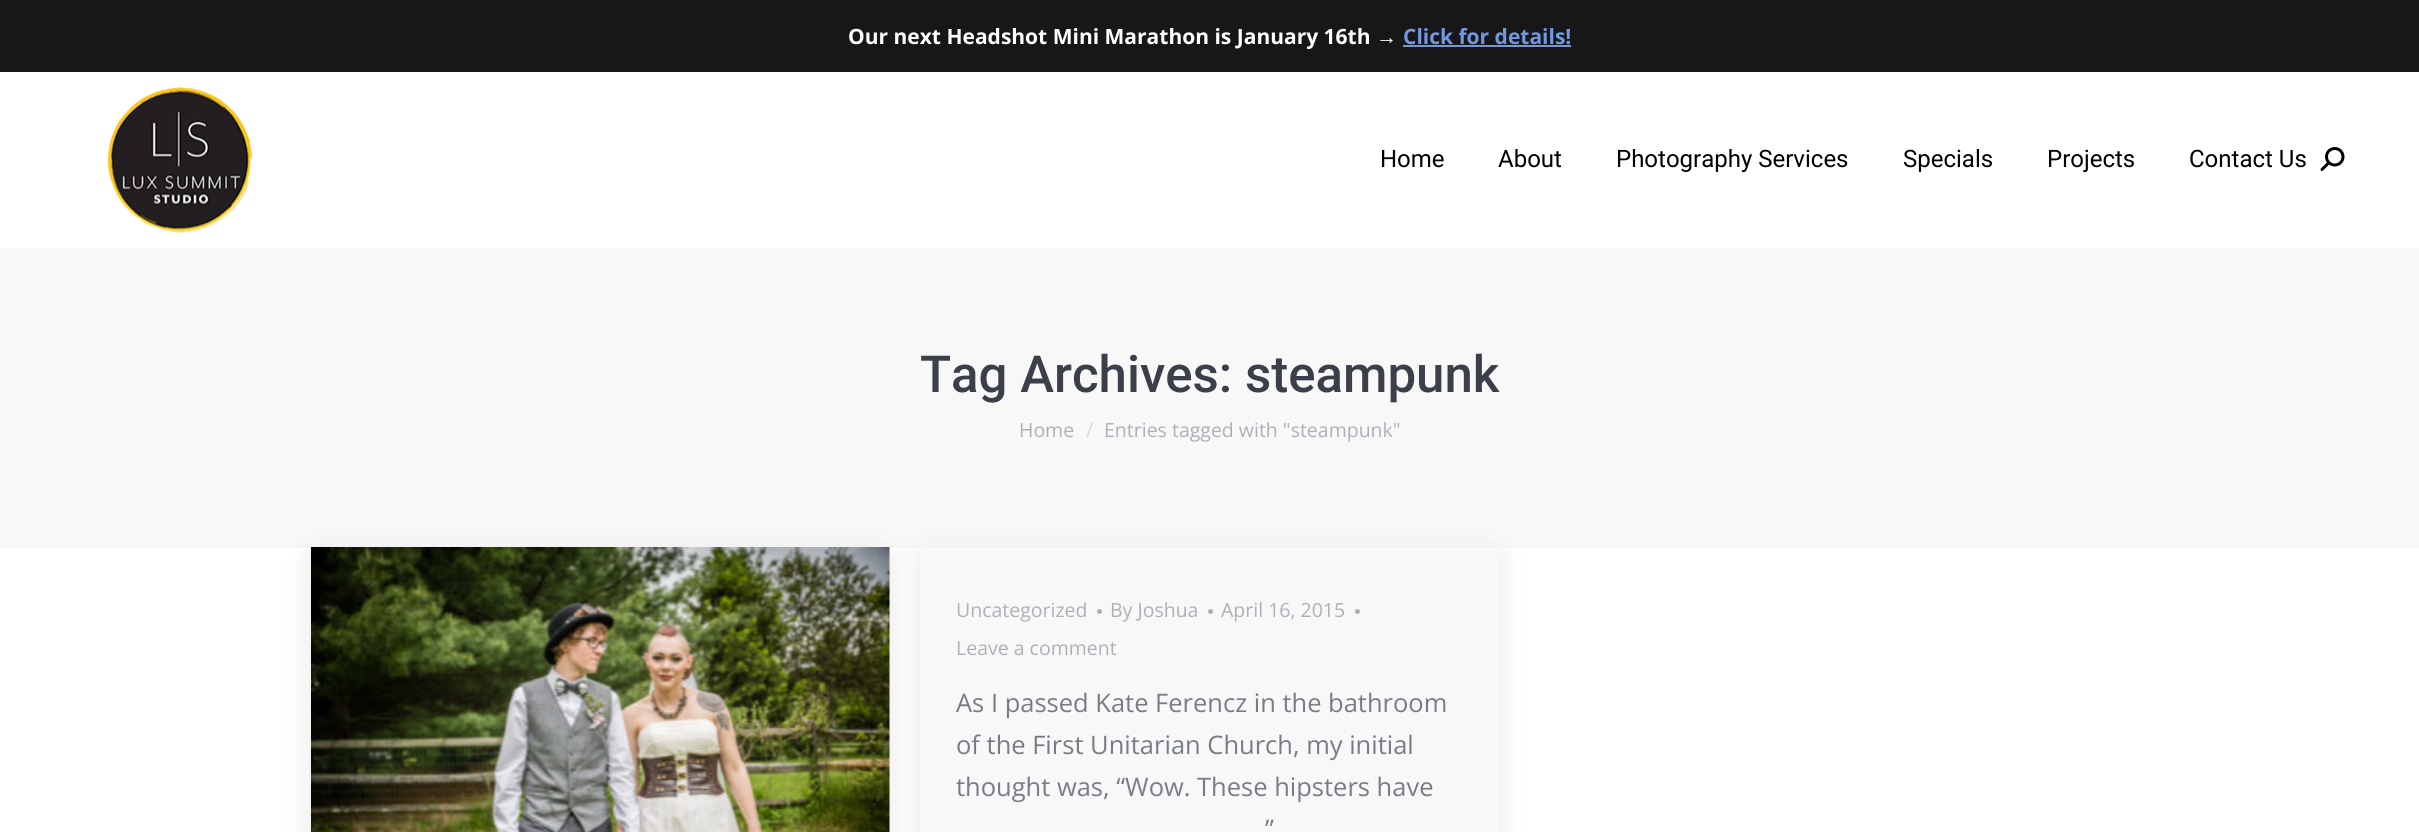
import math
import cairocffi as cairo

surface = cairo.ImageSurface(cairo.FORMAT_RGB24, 2419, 832)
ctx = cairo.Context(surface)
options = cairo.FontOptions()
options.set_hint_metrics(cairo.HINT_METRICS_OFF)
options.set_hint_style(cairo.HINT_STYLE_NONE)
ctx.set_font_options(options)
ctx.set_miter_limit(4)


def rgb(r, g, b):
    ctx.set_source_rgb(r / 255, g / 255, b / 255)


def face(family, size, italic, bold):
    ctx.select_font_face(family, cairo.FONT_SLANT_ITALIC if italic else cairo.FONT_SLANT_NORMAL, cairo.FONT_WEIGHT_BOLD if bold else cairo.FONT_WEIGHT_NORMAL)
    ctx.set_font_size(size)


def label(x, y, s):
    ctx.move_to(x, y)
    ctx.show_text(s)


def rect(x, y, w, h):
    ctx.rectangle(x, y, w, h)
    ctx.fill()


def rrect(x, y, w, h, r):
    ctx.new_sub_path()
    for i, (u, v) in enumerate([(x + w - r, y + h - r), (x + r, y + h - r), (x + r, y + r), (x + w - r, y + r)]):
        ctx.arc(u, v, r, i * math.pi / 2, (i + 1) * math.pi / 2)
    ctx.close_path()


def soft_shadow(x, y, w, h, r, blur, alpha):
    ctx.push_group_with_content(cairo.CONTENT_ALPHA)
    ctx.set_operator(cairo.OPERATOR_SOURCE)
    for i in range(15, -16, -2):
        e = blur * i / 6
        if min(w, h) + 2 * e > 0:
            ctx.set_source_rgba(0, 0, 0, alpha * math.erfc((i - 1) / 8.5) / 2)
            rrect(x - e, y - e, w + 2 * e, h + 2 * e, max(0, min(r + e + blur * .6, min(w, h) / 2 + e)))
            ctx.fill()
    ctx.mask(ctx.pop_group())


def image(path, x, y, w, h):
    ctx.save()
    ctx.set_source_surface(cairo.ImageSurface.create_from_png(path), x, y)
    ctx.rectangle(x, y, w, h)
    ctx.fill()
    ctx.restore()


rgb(255, 255, 255)
ctx.paint()
rgb(23, 23, 23)
rect(0, 0, 2419, 72)
face('Open Sans', 21, 0, 1)
rgb(255, 255, 255)
label(848, 44, 'Our next Headshot Mini Marathon is January 16th')
face('Liberation Sans', 21, 0, 1)
label(1376, 44, '→')
rgb(114, 152, 228)
rect(1403, 45, 168, 2)
face('Open Sans', 21, 0, 1)
label(1403, 44, 'Click for details!')
image('image0.png', 107, 87, 146, 146)
face('Roboto', 24, 0, 0)
rgb(0, 0, 0)
label(1380, 167, 'Home')
label(1498, 167, 'About')
label(1616, 167, 'Photography Services')
label(1903, 167, 'Specials')
label(2047, 167, 'Projects')
label(2189, 167, 'Contact Us')
image('image1.png', 2320, 147, 25, 24)
rgb(248, 248, 249)
rect(0, 248, 2419, 300)
face('Roboto Medium', 51, 0, 0)
rgb(59, 63, 74)
label(920, 392, 'Tag Archives: steampunk')
face('Open Sans', 19.5, 0, 0)
rgb(173, 176, 182)
label(1019, 437, 'Home')
rgb(211, 212, 216)
label(1086, 437, '/')
rgb(173, 176, 182)
label(1104, 437, 'Entries tagged with "steampunk"')
rgb(0, 0, 0)
soft_shadow(311, 557, 579, 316, 0, 13.5, 0.1)
rgb(248, 248, 249)
rect(889, 548, 1, 284)
rgb(0, 0, 0)
soft_shadow(920, 557, 579, 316, 0, 13.5, 0.1)
image('image2.png', 311, 547, 579, 285)
rgb(248, 248, 249)
rect(920, 548, 579, 284)
rgb(173, 176, 182)
label(956, 617, 'Uncategorized')
ctx.new_path()
ctx.arc(1099.5, 611.5, 2.5, 0, 2 * math.pi)
ctx.fill()
label(1110, 617, 'By Joshua')
ctx.new_path()
ctx.arc(1210.5, 611.5, 2.5, 0, 2 * math.pi)
ctx.fill()
label(1221, 617, 'April 16, 2015')
ctx.new_path()
ctx.arc(1357.5, 611.5, 2.5, 0, 2 * math.pi)
ctx.fill()
label(956, 655, 'Leave a comment')
face('Open Sans', 25.5, 0, 0)
rgb(120, 125, 133)
label(956, 712, 'As I passed Kate Ferencz in the bathroom')
label(956, 754, 'of the First Unitarian Church, my initial')
label(956, 796, 'thought was, “Wow. These hipsters have')
label(1265, 838, '”')
surface.write_to_png('render.png')
